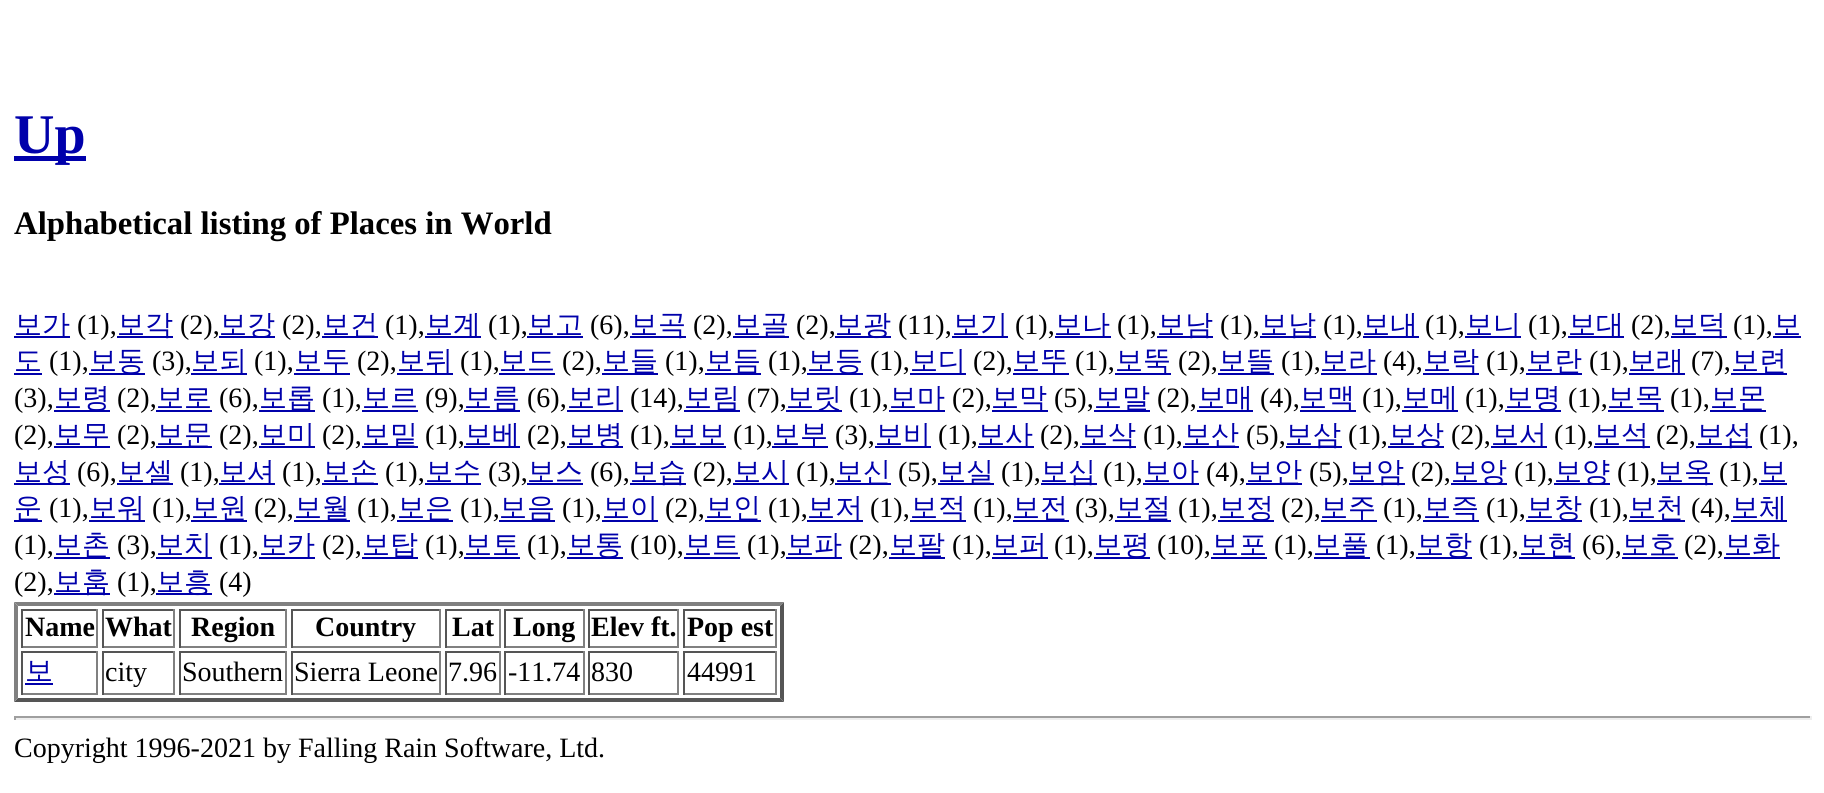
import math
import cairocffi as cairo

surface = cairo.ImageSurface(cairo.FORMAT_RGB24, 1824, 793)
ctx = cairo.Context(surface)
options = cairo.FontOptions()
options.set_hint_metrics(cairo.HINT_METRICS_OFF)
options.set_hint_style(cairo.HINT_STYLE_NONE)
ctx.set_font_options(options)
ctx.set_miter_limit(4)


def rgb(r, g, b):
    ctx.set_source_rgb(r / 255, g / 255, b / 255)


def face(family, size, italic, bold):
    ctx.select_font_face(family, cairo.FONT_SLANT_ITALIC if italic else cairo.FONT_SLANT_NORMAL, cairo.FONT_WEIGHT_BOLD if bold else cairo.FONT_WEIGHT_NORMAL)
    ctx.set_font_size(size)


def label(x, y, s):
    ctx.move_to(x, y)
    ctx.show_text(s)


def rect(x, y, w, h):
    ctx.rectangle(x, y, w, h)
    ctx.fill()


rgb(255, 255, 255)
ctx.paint()
rgb(0, 0, 171)
rect(14, 156, 72, 5)
face('Liberation Serif', 56, 0, 1)
label(14, 153, 'Up')
face('Liberation Serif', 32.75, 0, 1)
rgb(0, 0, 0)
label(14, 234, 'Alphabetical listing of Places in World')
rgb(0, 0, 171)
rect(14, 336, 56, 2)
face('WenQuanYi Zen Hei Medium', 28, 0, 0)
label(14, 334, '보가')
face('Liberation Serif', 28, 0, 0)
rgb(0, 0, 0)
label(77, 334, '(1),')
rgb(0, 0, 171)
rect(117, 336, 56, 2)
face('WenQuanYi Zen Hei Medium', 28, 0, 0)
label(117, 334, '보각')
face('Liberation Serif', 28, 0, 0)
rgb(0, 0, 0)
label(180, 334, '(2),')
rgb(0, 0, 171)
rect(219, 336, 56, 2)
face('WenQuanYi Zen Hei Medium', 28, 0, 0)
label(219, 334, '보강')
face('Liberation Serif', 28, 0, 0)
rgb(0, 0, 0)
label(282, 334, '(2),')
rgb(0, 0, 171)
rect(322, 336, 56, 2)
face('WenQuanYi Zen Hei Medium', 28, 0, 0)
label(322, 334, '보건')
face('Liberation Serif', 28, 0, 0)
rgb(0, 0, 0)
label(385, 334, '(1),')
rgb(0, 0, 171)
rect(425, 336, 56, 2)
face('WenQuanYi Zen Hei Medium', 28, 0, 0)
label(425, 334, '보계')
face('Liberation Serif', 28, 0, 0)
rgb(0, 0, 0)
label(488, 334, '(1),')
face('WenQuanYi Zen Hei Medium', 28, 0, 0)
rgb(0, 0, 171)
label(527, 334, '보고')
rect(527, 336, 56, 2)
face('Liberation Serif', 28, 0, 0)
rgb(0, 0, 0)
label(590, 334, '(6),')
rgb(0, 0, 171)
rect(630, 336, 56, 2)
face('WenQuanYi Zen Hei Medium', 28, 0, 0)
label(630, 334, '보곡')
face('Liberation Serif', 28, 0, 0)
rgb(0, 0, 0)
label(693, 334, '(2),')
rgb(0, 0, 171)
rect(733, 336, 56, 2)
face('WenQuanYi Zen Hei Medium', 28, 0, 0)
label(733, 334, '보골')
face('Liberation Serif', 28, 0, 0)
rgb(0, 0, 0)
label(796, 334, '(2),')
rgb(0, 0, 171)
rect(835, 336, 56, 2)
face('WenQuanYi Zen Hei Medium', 28, 0, 0)
label(835, 334, '보광')
face('Liberation Serif', 28, 0, 0)
rgb(0, 0, 0)
label(898, 334, '(11),')
rgb(0, 0, 171)
rect(952, 336, 56, 2)
face('WenQuanYi Zen Hei Medium', 28, 0, 0)
label(952, 334, '보기')
face('Liberation Serif', 28, 0, 0)
rgb(0, 0, 0)
label(1015, 334, '(1),')
rgb(0, 0, 171)
rect(1055, 336, 56, 2)
face('WenQuanYi Zen Hei Medium', 28, 0, 0)
label(1054, 334, '보나')
face('Liberation Serif', 28, 0, 0)
rgb(0, 0, 0)
label(1117, 334, '(1),')
rgb(0, 0, 171)
rect(1157, 336, 56, 2)
face('WenQuanYi Zen Hei Medium', 28, 0, 0)
label(1157, 334, '보남')
face('Liberation Serif', 28, 0, 0)
rgb(0, 0, 0)
label(1220, 334, '(1),')
rgb(0, 0, 171)
rect(1260, 336, 56, 2)
face('WenQuanYi Zen Hei Medium', 28, 0, 0)
label(1260, 334, '보납')
face('Liberation Serif', 28, 0, 0)
rgb(0, 0, 0)
label(1323, 334, '(1),')
rgb(0, 0, 171)
rect(1363, 336, 56, 2)
face('WenQuanYi Zen Hei Medium', 28, 0, 0)
label(1362, 334, '보내')
face('Liberation Serif', 28, 0, 0)
rgb(0, 0, 0)
label(1425, 334, '(1),')
rgb(0, 0, 171)
rect(1465, 336, 56, 2)
face('WenQuanYi Zen Hei Medium', 28, 0, 0)
label(1465, 334, '보니')
face('Liberation Serif', 28, 0, 0)
rgb(0, 0, 0)
label(1528, 334, '(1),')
rgb(0, 0, 171)
rect(1568, 336, 56, 2)
face('WenQuanYi Zen Hei Medium', 28, 0, 0)
label(1568, 334, '보대')
face('Liberation Serif', 28, 0, 0)
rgb(0, 0, 0)
label(1631, 334, '(2),')
rgb(0, 0, 171)
rect(1671, 336, 56, 2)
face('WenQuanYi Zen Hei Medium', 28, 0, 0)
label(1670, 334, '보덕')
face('Liberation Serif', 28, 0, 0)
rgb(0, 0, 0)
label(1733, 334, '(1),')
face('WenQuanYi Zen Hei Medium', 28, 0, 0)
rgb(0, 0, 171)
label(1773, 334, '보')
rect(1773, 336, 28, 2)
label(14, 370, '도')
rect(14, 373, 28, 2)
face('Liberation Serif', 28, 0, 0)
rgb(0, 0, 0)
label(49, 370, '(1),')
rgb(0, 0, 171)
rect(89, 373, 56, 2)
face('WenQuanYi Zen Hei Medium', 28, 0, 0)
label(89, 370, '보동')
face('Liberation Serif', 28, 0, 0)
rgb(0, 0, 0)
label(152, 370, '(3),')
rgb(0, 0, 171)
rect(191, 373, 56, 2)
face('WenQuanYi Zen Hei Medium', 28, 0, 0)
label(191, 370, '보되')
face('Liberation Serif', 28, 0, 0)
rgb(0, 0, 0)
label(254, 370, '(1),')
rgb(0, 0, 171)
rect(294, 373, 56, 2)
face('WenQuanYi Zen Hei Medium', 28, 0, 0)
label(294, 370, '보두')
face('Liberation Serif', 28, 0, 0)
rgb(0, 0, 0)
label(357, 370, '(2),')
rgb(0, 0, 171)
rect(397, 373, 56, 2)
face('WenQuanYi Zen Hei Medium', 28, 0, 0)
label(397, 370, '보뒤')
face('Liberation Serif', 28, 0, 0)
rgb(0, 0, 0)
label(460, 370, '(1),')
face('WenQuanYi Zen Hei Medium', 28, 0, 0)
rgb(0, 0, 171)
label(499, 370, '보드')
rect(499, 373, 56, 2)
face('Liberation Serif', 28, 0, 0)
rgb(0, 0, 0)
label(562, 370, '(2),')
rgb(0, 0, 171)
rect(602, 373, 56, 2)
face('WenQuanYi Zen Hei Medium', 28, 0, 0)
label(602, 370, '보들')
face('Liberation Serif', 28, 0, 0)
rgb(0, 0, 0)
label(665, 370, '(1),')
rgb(0, 0, 171)
rect(705, 373, 56, 2)
face('WenQuanYi Zen Hei Medium', 28, 0, 0)
label(705, 370, '보듬')
face('Liberation Serif', 28, 0, 0)
rgb(0, 0, 0)
label(768, 370, '(1),')
rgb(0, 0, 171)
rect(807, 373, 56, 2)
face('WenQuanYi Zen Hei Medium', 28, 0, 0)
label(807, 370, '보등')
face('Liberation Serif', 28, 0, 0)
rgb(0, 0, 0)
label(870, 370, '(1),')
rgb(0, 0, 171)
rect(910, 373, 56, 2)
face('WenQuanYi Zen Hei Medium', 28, 0, 0)
label(910, 370, '보디')
face('Liberation Serif', 28, 0, 0)
rgb(0, 0, 0)
label(973, 370, '(2),')
rgb(0, 0, 171)
rect(1013, 373, 56, 2)
face('WenQuanYi Zen Hei Medium', 28, 0, 0)
label(1012, 370, '보뚜')
face('Liberation Serif', 28, 0, 0)
rgb(0, 0, 0)
label(1075, 370, '(1),')
rgb(0, 0, 171)
rect(1115, 373, 56, 2)
face('WenQuanYi Zen Hei Medium', 28, 0, 0)
label(1115, 370, '보뚝')
face('Liberation Serif', 28, 0, 0)
rgb(0, 0, 0)
label(1178, 370, '(2),')
rgb(0, 0, 171)
rect(1218, 373, 56, 2)
face('WenQuanYi Zen Hei Medium', 28, 0, 0)
label(1218, 370, '보뜰')
face('Liberation Serif', 28, 0, 0)
rgb(0, 0, 0)
label(1281, 370, '(1),')
rgb(0, 0, 171)
rect(1321, 373, 56, 2)
face('WenQuanYi Zen Hei Medium', 28, 0, 0)
label(1320, 370, '보라')
face('Liberation Serif', 28, 0, 0)
rgb(0, 0, 0)
label(1383, 370, '(4),')
rgb(0, 0, 171)
rect(1423, 373, 56, 2)
face('WenQuanYi Zen Hei Medium', 28, 0, 0)
label(1423, 370, '보락')
face('Liberation Serif', 28, 0, 0)
rgb(0, 0, 0)
label(1486, 370, '(1),')
rgb(0, 0, 171)
rect(1526, 373, 56, 2)
face('WenQuanYi Zen Hei Medium', 28, 0, 0)
label(1526, 370, '보란')
face('Liberation Serif', 28, 0, 0)
rgb(0, 0, 0)
label(1589, 370, '(1),')
rgb(0, 0, 171)
rect(1629, 373, 56, 2)
face('WenQuanYi Zen Hei Medium', 28, 0, 0)
label(1628, 370, '보래')
face('Liberation Serif', 28, 0, 0)
rgb(0, 0, 0)
label(1691, 370, '(7),')
rgb(0, 0, 171)
rect(1731, 373, 56, 2)
face('WenQuanYi Zen Hei Medium', 28, 0, 0)
label(1731, 370, '보련')
face('Liberation Serif', 28, 0, 0)
rgb(0, 0, 0)
label(14, 407, '(3),')
rgb(0, 0, 171)
rect(54, 410, 56, 2)
face('WenQuanYi Zen Hei Medium', 28, 0, 0)
label(54, 407, '보령')
face('Liberation Serif', 28, 0, 0)
rgb(0, 0, 0)
label(117, 407, '(2),')
face('WenQuanYi Zen Hei Medium', 28, 0, 0)
rgb(0, 0, 171)
label(156, 407, '보로')
rect(156, 410, 56, 2)
face('Liberation Serif', 28, 0, 0)
rgb(0, 0, 0)
label(219, 407, '(6),')
rgb(0, 0, 171)
rect(259, 410, 56, 2)
face('WenQuanYi Zen Hei Medium', 28, 0, 0)
label(259, 407, '보롭')
face('Liberation Serif', 28, 0, 0)
rgb(0, 0, 0)
label(322, 407, '(1),')
face('WenQuanYi Zen Hei Medium', 28, 0, 0)
rgb(0, 0, 171)
label(362, 407, '보르')
rect(362, 410, 56, 2)
face('Liberation Serif', 28, 0, 0)
rgb(0, 0, 0)
label(425, 407, '(9),')
rgb(0, 0, 171)
rect(464, 410, 56, 2)
face('WenQuanYi Zen Hei Medium', 28, 0, 0)
label(464, 407, '보름')
face('Liberation Serif', 28, 0, 0)
rgb(0, 0, 0)
label(527, 407, '(6),')
rgb(0, 0, 171)
rect(567, 410, 56, 2)
face('WenQuanYi Zen Hei Medium', 28, 0, 0)
label(567, 407, '보리')
face('Liberation Serif', 28, 0, 0)
rgb(0, 0, 0)
label(630, 407, '(14),')
rgb(0, 0, 171)
rect(684, 410, 56, 2)
face('WenQuanYi Zen Hei Medium', 28, 0, 0)
label(684, 407, '보림')
face('Liberation Serif', 28, 0, 0)
rgb(0, 0, 0)
label(747, 407, '(7),')
rgb(0, 0, 171)
rect(786, 410, 56, 2)
face('WenQuanYi Zen Hei Medium', 28, 0, 0)
label(786, 407, '보릿')
face('Liberation Serif', 28, 0, 0)
rgb(0, 0, 0)
label(849, 407, '(1),')
rgb(0, 0, 171)
rect(889, 410, 56, 2)
face('WenQuanYi Zen Hei Medium', 28, 0, 0)
label(889, 407, '보마')
face('Liberation Serif', 28, 0, 0)
rgb(0, 0, 0)
label(952, 407, '(2),')
rgb(0, 0, 171)
rect(992, 410, 56, 2)
face('WenQuanYi Zen Hei Medium', 28, 0, 0)
label(991, 407, '보막')
face('Liberation Serif', 28, 0, 0)
rgb(0, 0, 0)
label(1054, 407, '(5),')
rgb(0, 0, 171)
rect(1094, 410, 56, 2)
face('WenQuanYi Zen Hei Medium', 28, 0, 0)
label(1094, 407, '보말')
face('Liberation Serif', 28, 0, 0)
rgb(0, 0, 0)
label(1157, 407, '(2),')
rgb(0, 0, 171)
rect(1197, 410, 56, 2)
face('WenQuanYi Zen Hei Medium', 28, 0, 0)
label(1197, 407, '보매')
face('Liberation Serif', 28, 0, 0)
rgb(0, 0, 0)
label(1260, 407, '(4),')
rgb(0, 0, 171)
rect(1300, 410, 56, 2)
face('WenQuanYi Zen Hei Medium', 28, 0, 0)
label(1299, 407, '보맥')
face('Liberation Serif', 28, 0, 0)
rgb(0, 0, 0)
label(1362, 407, '(1),')
rgb(0, 0, 171)
rect(1402, 410, 56, 2)
face('WenQuanYi Zen Hei Medium', 28, 0, 0)
label(1402, 407, '보메')
face('Liberation Serif', 28, 0, 0)
rgb(0, 0, 0)
label(1465, 407, '(1),')
rgb(0, 0, 171)
rect(1505, 410, 56, 2)
face('WenQuanYi Zen Hei Medium', 28, 0, 0)
label(1505, 407, '보명')
face('Liberation Serif', 28, 0, 0)
rgb(0, 0, 0)
label(1568, 407, '(1),')
rgb(0, 0, 171)
rect(1608, 410, 56, 2)
face('WenQuanYi Zen Hei Medium', 28, 0, 0)
label(1607, 407, '보목')
face('Liberation Serif', 28, 0, 0)
rgb(0, 0, 0)
label(1670, 407, '(1),')
rgb(0, 0, 171)
rect(1710, 410, 56, 2)
face('WenQuanYi Zen Hei Medium', 28, 0, 0)
label(1710, 407, '보몬')
face('Liberation Serif', 28, 0, 0)
rgb(0, 0, 0)
label(14, 444, '(2),')
rgb(0, 0, 171)
rect(54, 446, 56, 2)
face('WenQuanYi Zen Hei Medium', 28, 0, 0)
label(54, 444, '보무')
face('Liberation Serif', 28, 0, 0)
rgb(0, 0, 0)
label(117, 444, '(2),')
rgb(0, 0, 171)
rect(156, 446, 56, 2)
face('WenQuanYi Zen Hei Medium', 28, 0, 0)
label(156, 444, '보문')
face('Liberation Serif', 28, 0, 0)
rgb(0, 0, 0)
label(219, 444, '(2),')
rgb(0, 0, 171)
rect(259, 446, 56, 2)
face('WenQuanYi Zen Hei Medium', 28, 0, 0)
label(259, 444, '보미')
face('Liberation Serif', 28, 0, 0)
rgb(0, 0, 0)
label(322, 444, '(2),')
rgb(0, 0, 171)
rect(362, 446, 56, 2)
face('WenQuanYi Zen Hei Medium', 28, 0, 0)
label(362, 444, '보밑')
face('Liberation Serif', 28, 0, 0)
rgb(0, 0, 0)
label(425, 444, '(1),')
rgb(0, 0, 171)
rect(464, 446, 56, 2)
face('WenQuanYi Zen Hei Medium', 28, 0, 0)
label(464, 444, '보베')
face('Liberation Serif', 28, 0, 0)
rgb(0, 0, 0)
label(527, 444, '(2),')
rgb(0, 0, 171)
rect(567, 446, 56, 2)
face('WenQuanYi Zen Hei Medium', 28, 0, 0)
label(567, 444, '보병')
face('Liberation Serif', 28, 0, 0)
rgb(0, 0, 0)
label(630, 444, '(1),')
face('WenQuanYi Zen Hei Medium', 28, 0, 0)
rgb(0, 0, 171)
label(670, 444, '보보')
rect(670, 446, 56, 2)
face('Liberation Serif', 28, 0, 0)
rgb(0, 0, 0)
label(733, 444, '(1),')
rgb(0, 0, 171)
rect(772, 446, 56, 2)
face('WenQuanYi Zen Hei Medium', 28, 0, 0)
label(772, 444, '보부')
face('Liberation Serif', 28, 0, 0)
rgb(0, 0, 0)
label(835, 444, '(3),')
rgb(0, 0, 171)
rect(875, 446, 56, 2)
face('WenQuanYi Zen Hei Medium', 28, 0, 0)
label(875, 444, '보비')
face('Liberation Serif', 28, 0, 0)
rgb(0, 0, 0)
label(938, 444, '(1),')
rgb(0, 0, 171)
rect(978, 446, 56, 2)
face('WenQuanYi Zen Hei Medium', 28, 0, 0)
label(977, 444, '보사')
face('Liberation Serif', 28, 0, 0)
rgb(0, 0, 0)
label(1040, 444, '(2),')
rgb(0, 0, 171)
rect(1080, 446, 56, 2)
face('WenQuanYi Zen Hei Medium', 28, 0, 0)
label(1080, 444, '보삭')
face('Liberation Serif', 28, 0, 0)
rgb(0, 0, 0)
label(1143, 444, '(1),')
rgb(0, 0, 171)
rect(1183, 446, 56, 2)
face('WenQuanYi Zen Hei Medium', 28, 0, 0)
label(1183, 444, '보산')
face('Liberation Serif', 28, 0, 0)
rgb(0, 0, 0)
label(1246, 444, '(5),')
rgb(0, 0, 171)
rect(1286, 446, 56, 2)
face('WenQuanYi Zen Hei Medium', 28, 0, 0)
label(1285, 444, '보삼')
face('Liberation Serif', 28, 0, 0)
rgb(0, 0, 0)
label(1348, 444, '(1),')
rgb(0, 0, 171)
rect(1388, 446, 56, 2)
face('WenQuanYi Zen Hei Medium', 28, 0, 0)
label(1388, 444, '보상')
face('Liberation Serif', 28, 0, 0)
rgb(0, 0, 0)
label(1451, 444, '(2),')
rgb(0, 0, 171)
rect(1491, 446, 56, 2)
face('WenQuanYi Zen Hei Medium', 28, 0, 0)
label(1491, 444, '보서')
face('Liberation Serif', 28, 0, 0)
rgb(0, 0, 0)
label(1554, 444, '(1),')
rgb(0, 0, 171)
rect(1594, 446, 56, 2)
face('WenQuanYi Zen Hei Medium', 28, 0, 0)
label(1593, 444, '보석')
face('Liberation Serif', 28, 0, 0)
rgb(0, 0, 0)
label(1656, 444, '(2),')
rgb(0, 0, 171)
rect(1696, 446, 56, 2)
face('WenQuanYi Zen Hei Medium', 28, 0, 0)
label(1696, 444, '보섭')
face('Liberation Serif', 28, 0, 0)
rgb(0, 0, 0)
label(1759, 444, '(1),')
rgb(0, 0, 171)
rect(14, 483, 56, 2)
face('WenQuanYi Zen Hei Medium', 28, 0, 0)
label(14, 481, '보성')
face('Liberation Serif', 28, 0, 0)
rgb(0, 0, 0)
label(77, 481, '(6),')
rgb(0, 0, 171)
rect(117, 483, 56, 2)
face('WenQuanYi Zen Hei Medium', 28, 0, 0)
label(117, 481, '보셀')
face('Liberation Serif', 28, 0, 0)
rgb(0, 0, 0)
label(180, 481, '(1),')
rgb(0, 0, 171)
rect(219, 483, 56, 2)
face('WenQuanYi Zen Hei Medium', 28, 0, 0)
label(219, 481, '보셔')
face('Liberation Serif', 28, 0, 0)
rgb(0, 0, 0)
label(282, 481, '(1),')
rgb(0, 0, 171)
rect(322, 483, 56, 2)
face('WenQuanYi Zen Hei Medium', 28, 0, 0)
label(322, 481, '보손')
face('Liberation Serif', 28, 0, 0)
rgb(0, 0, 0)
label(385, 481, '(1),')
rgb(0, 0, 171)
rect(425, 483, 56, 2)
face('WenQuanYi Zen Hei Medium', 28, 0, 0)
label(425, 481, '보수')
face('Liberation Serif', 28, 0, 0)
rgb(0, 0, 0)
label(488, 481, '(3),')
face('WenQuanYi Zen Hei Medium', 28, 0, 0)
rgb(0, 0, 171)
label(527, 481, '보스')
rect(527, 483, 56, 2)
face('Liberation Serif', 28, 0, 0)
rgb(0, 0, 0)
label(590, 481, '(6),')
rgb(0, 0, 171)
rect(630, 483, 56, 2)
face('WenQuanYi Zen Hei Medium', 28, 0, 0)
label(630, 481, '보습')
face('Liberation Serif', 28, 0, 0)
rgb(0, 0, 0)
label(693, 481, '(2),')
rgb(0, 0, 171)
rect(733, 483, 56, 2)
face('WenQuanYi Zen Hei Medium', 28, 0, 0)
label(733, 481, '보시')
face('Liberation Serif', 28, 0, 0)
rgb(0, 0, 0)
label(796, 481, '(1),')
rgb(0, 0, 171)
rect(835, 483, 56, 2)
face('WenQuanYi Zen Hei Medium', 28, 0, 0)
label(835, 481, '보신')
face('Liberation Serif', 28, 0, 0)
rgb(0, 0, 0)
label(898, 481, '(5),')
rgb(0, 0, 171)
rect(938, 483, 56, 2)
face('WenQuanYi Zen Hei Medium', 28, 0, 0)
label(938, 481, '보실')
face('Liberation Serif', 28, 0, 0)
rgb(0, 0, 0)
label(1001, 481, '(1),')
rgb(0, 0, 171)
rect(1041, 483, 56, 2)
face('WenQuanYi Zen Hei Medium', 28, 0, 0)
label(1040, 481, '보십')
face('Liberation Serif', 28, 0, 0)
rgb(0, 0, 0)
label(1103, 481, '(1),')
rgb(0, 0, 171)
rect(1143, 483, 56, 2)
face('WenQuanYi Zen Hei Medium', 28, 0, 0)
label(1143, 481, '보아')
face('Liberation Serif', 28, 0, 0)
rgb(0, 0, 0)
label(1206, 481, '(4),')
rgb(0, 0, 171)
rect(1246, 483, 56, 2)
face('WenQuanYi Zen Hei Medium', 28, 0, 0)
label(1246, 481, '보안')
face('Liberation Serif', 28, 0, 0)
rgb(0, 0, 0)
label(1309, 481, '(5),')
rgb(0, 0, 171)
rect(1349, 483, 56, 2)
face('WenQuanYi Zen Hei Medium', 28, 0, 0)
label(1348, 481, '보암')
face('Liberation Serif', 28, 0, 0)
rgb(0, 0, 0)
label(1411, 481, '(2),')
rgb(0, 0, 171)
rect(1451, 483, 56, 2)
face('WenQuanYi Zen Hei Medium', 28, 0, 0)
label(1451, 481, '보앙')
face('Liberation Serif', 28, 0, 0)
rgb(0, 0, 0)
label(1514, 481, '(1),')
rgb(0, 0, 171)
rect(1554, 483, 56, 2)
face('WenQuanYi Zen Hei Medium', 28, 0, 0)
label(1554, 481, '보양')
face('Liberation Serif', 28, 0, 0)
rgb(0, 0, 0)
label(1617, 481, '(1),')
rgb(0, 0, 171)
rect(1657, 483, 56, 2)
face('WenQuanYi Zen Hei Medium', 28, 0, 0)
label(1656, 481, '보옥')
face('Liberation Serif', 28, 0, 0)
rgb(0, 0, 0)
label(1719, 481, '(1),')
face('WenQuanYi Zen Hei Medium', 28, 0, 0)
rgb(0, 0, 171)
label(1759, 481, '보')
rect(1759, 483, 28, 2)
rect(14, 520, 28, 2)
label(14, 517, '운')
face('Liberation Serif', 28, 0, 0)
rgb(0, 0, 0)
label(49, 517, '(1),')
rgb(0, 0, 171)
rect(89, 520, 56, 2)
face('WenQuanYi Zen Hei Medium', 28, 0, 0)
label(89, 517, '보워')
face('Liberation Serif', 28, 0, 0)
rgb(0, 0, 0)
label(152, 517, '(1),')
rgb(0, 0, 171)
rect(191, 520, 56, 2)
face('WenQuanYi Zen Hei Medium', 28, 0, 0)
label(191, 517, '보원')
face('Liberation Serif', 28, 0, 0)
rgb(0, 0, 0)
label(254, 517, '(2),')
rgb(0, 0, 171)
rect(294, 520, 56, 2)
face('WenQuanYi Zen Hei Medium', 28, 0, 0)
label(294, 517, '보월')
face('Liberation Serif', 28, 0, 0)
rgb(0, 0, 0)
label(357, 517, '(1),')
rgb(0, 0, 171)
rect(397, 520, 56, 2)
face('WenQuanYi Zen Hei Medium', 28, 0, 0)
label(397, 517, '보은')
face('Liberation Serif', 28, 0, 0)
rgb(0, 0, 0)
label(460, 517, '(1),')
rgb(0, 0, 171)
rect(499, 520, 56, 2)
face('WenQuanYi Zen Hei Medium', 28, 0, 0)
label(499, 517, '보음')
face('Liberation Serif', 28, 0, 0)
rgb(0, 0, 0)
label(562, 517, '(1),')
rgb(0, 0, 171)
rect(602, 520, 56, 2)
face('WenQuanYi Zen Hei Medium', 28, 0, 0)
label(602, 517, '보이')
face('Liberation Serif', 28, 0, 0)
rgb(0, 0, 0)
label(665, 517, '(2),')
rgb(0, 0, 171)
rect(705, 520, 56, 2)
face('WenQuanYi Zen Hei Medium', 28, 0, 0)
label(705, 517, '보인')
face('Liberation Serif', 28, 0, 0)
rgb(0, 0, 0)
label(768, 517, '(1),')
rgb(0, 0, 171)
rect(807, 520, 56, 2)
face('WenQuanYi Zen Hei Medium', 28, 0, 0)
label(807, 517, '보저')
face('Liberation Serif', 28, 0, 0)
rgb(0, 0, 0)
label(870, 517, '(1),')
rgb(0, 0, 171)
rect(910, 520, 56, 2)
face('WenQuanYi Zen Hei Medium', 28, 0, 0)
label(910, 517, '보적')
face('Liberation Serif', 28, 0, 0)
rgb(0, 0, 0)
label(973, 517, '(1),')
rgb(0, 0, 171)
rect(1013, 520, 56, 2)
face('WenQuanYi Zen Hei Medium', 28, 0, 0)
label(1012, 517, '보전')
face('Liberation Serif', 28, 0, 0)
rgb(0, 0, 0)
label(1075, 517, '(3),')
rgb(0, 0, 171)
rect(1115, 520, 56, 2)
face('WenQuanYi Zen Hei Medium', 28, 0, 0)
label(1115, 517, '보절')
face('Liberation Serif', 28, 0, 0)
rgb(0, 0, 0)
label(1178, 517, '(1),')
rgb(0, 0, 171)
rect(1218, 520, 56, 2)
face('WenQuanYi Zen Hei Medium', 28, 0, 0)
label(1218, 517, '보정')
face('Liberation Serif', 28, 0, 0)
rgb(0, 0, 0)
label(1281, 517, '(2),')
rgb(0, 0, 171)
rect(1321, 520, 56, 2)
face('WenQuanYi Zen Hei Medium', 28, 0, 0)
label(1320, 517, '보주')
face('Liberation Serif', 28, 0, 0)
rgb(0, 0, 0)
label(1383, 517, '(1),')
rgb(0, 0, 171)
rect(1423, 520, 56, 2)
face('WenQuanYi Zen Hei Medium', 28, 0, 0)
label(1423, 517, '보즉')
face('Liberation Serif', 28, 0, 0)
rgb(0, 0, 0)
label(1486, 517, '(1),')
rgb(0, 0, 171)
rect(1526, 520, 56, 2)
face('WenQuanYi Zen Hei Medium', 28, 0, 0)
label(1526, 517, '보창')
face('Liberation Serif', 28, 0, 0)
rgb(0, 0, 0)
label(1589, 517, '(1),')
rgb(0, 0, 171)
rect(1629, 520, 56, 2)
face('WenQuanYi Zen Hei Medium', 28, 0, 0)
label(1628, 517, '보천')
face('Liberation Serif', 28, 0, 0)
rgb(0, 0, 0)
label(1691, 517, '(4),')
rgb(0, 0, 171)
rect(1731, 520, 56, 2)
face('WenQuanYi Zen Hei Medium', 28, 0, 0)
label(1731, 517, '보체')
face('Liberation Serif', 28, 0, 0)
rgb(0, 0, 0)
label(14, 554, '(1),')
rgb(0, 0, 171)
rect(54, 557, 56, 2)
face('WenQuanYi Zen Hei Medium', 28, 0, 0)
label(54, 554, '보촌')
face('Liberation Serif', 28, 0, 0)
rgb(0, 0, 0)
label(117, 554, '(3),')
rgb(0, 0, 171)
rect(156, 557, 56, 2)
face('WenQuanYi Zen Hei Medium', 28, 0, 0)
label(156, 554, '보치')
face('Liberation Serif', 28, 0, 0)
rgb(0, 0, 0)
label(219, 554, '(1),')
rgb(0, 0, 171)
rect(259, 557, 56, 2)
face('WenQuanYi Zen Hei Medium', 28, 0, 0)
label(259, 554, '보카')
face('Liberation Serif', 28, 0, 0)
rgb(0, 0, 0)
label(322, 554, '(2),')
rgb(0, 0, 171)
rect(362, 557, 56, 2)
face('WenQuanYi Zen Hei Medium', 28, 0, 0)
label(362, 554, '보탑')
face('Liberation Serif', 28, 0, 0)
rgb(0, 0, 0)
label(425, 554, '(1),')
face('WenQuanYi Zen Hei Medium', 28, 0, 0)
rgb(0, 0, 171)
label(464, 554, '보토')
rect(464, 557, 56, 2)
face('Liberation Serif', 28, 0, 0)
rgb(0, 0, 0)
label(527, 554, '(1),')
rgb(0, 0, 171)
rect(567, 557, 56, 2)
face('WenQuanYi Zen Hei Medium', 28, 0, 0)
label(567, 554, '보통')
face('Liberation Serif', 28, 0, 0)
rgb(0, 0, 0)
label(630, 554, '(10),')
face('WenQuanYi Zen Hei Medium', 28, 0, 0)
rgb(0, 0, 171)
label(684, 554, '보트')
rect(684, 557, 56, 2)
face('Liberation Serif', 28, 0, 0)
rgb(0, 0, 0)
label(747, 554, '(1),')
rgb(0, 0, 171)
rect(786, 557, 56, 2)
face('WenQuanYi Zen Hei Medium', 28, 0, 0)
label(786, 554, '보파')
face('Liberation Serif', 28, 0, 0)
rgb(0, 0, 0)
label(849, 554, '(2),')
rgb(0, 0, 171)
rect(889, 557, 56, 2)
face('WenQuanYi Zen Hei Medium', 28, 0, 0)
label(889, 554, '보팔')
face('Liberation Serif', 28, 0, 0)
rgb(0, 0, 0)
label(952, 554, '(1),')
rgb(0, 0, 171)
rect(992, 557, 56, 2)
face('WenQuanYi Zen Hei Medium', 28, 0, 0)
label(991, 554, '보퍼')
face('Liberation Serif', 28, 0, 0)
rgb(0, 0, 0)
label(1054, 554, '(1),')
rgb(0, 0, 171)
rect(1094, 557, 56, 2)
face('WenQuanYi Zen Hei Medium', 28, 0, 0)
label(1094, 554, '보평')
face('Liberation Serif', 28, 0, 0)
rgb(0, 0, 0)
label(1157, 554, '(10),')
face('WenQuanYi Zen Hei Medium', 28, 0, 0)
rgb(0, 0, 171)
label(1211, 554, '보포')
rect(1211, 557, 56, 2)
face('Liberation Serif', 28, 0, 0)
rgb(0, 0, 0)
label(1274, 554, '(1),')
rgb(0, 0, 171)
rect(1314, 557, 56, 2)
face('WenQuanYi Zen Hei Medium', 28, 0, 0)
label(1313, 554, '보풀')
face('Liberation Serif', 28, 0, 0)
rgb(0, 0, 0)
label(1376, 554, '(1),')
rgb(0, 0, 171)
rect(1416, 557, 56, 2)
face('WenQuanYi Zen Hei Medium', 28, 0, 0)
label(1416, 554, '보항')
face('Liberation Serif', 28, 0, 0)
rgb(0, 0, 0)
label(1479, 554, '(1),')
rgb(0, 0, 171)
rect(1519, 557, 56, 2)
face('WenQuanYi Zen Hei Medium', 28, 0, 0)
label(1519, 554, '보현')
face('Liberation Serif', 28, 0, 0)
rgb(0, 0, 0)
label(1582, 554, '(6),')
face('WenQuanYi Zen Hei Medium', 28, 0, 0)
rgb(0, 0, 171)
label(1621, 554, '보호')
rect(1622, 557, 56, 2)
face('Liberation Serif', 28, 0, 0)
rgb(0, 0, 0)
label(1684, 554, '(2),')
rgb(0, 0, 171)
rect(1724, 557, 56, 2)
face('WenQuanYi Zen Hei Medium', 28, 0, 0)
label(1724, 554, '보화')
face('Liberation Serif', 28, 0, 0)
rgb(0, 0, 0)
label(14, 591, '(2),')
rgb(0, 0, 171)
rect(54, 593, 56, 2)
face('WenQuanYi Zen Hei Medium', 28, 0, 0)
label(54, 591, '보훔')
face('Liberation Serif', 28, 0, 0)
rgb(0, 0, 0)
label(117, 591, '(1),')
rgb(0, 0, 171)
rect(156, 593, 56, 2)
face('WenQuanYi Zen Hei Medium', 28, 0, 0)
label(156, 591, '보흥')
face('Liberation Serif', 28, 0, 0)
rgb(0, 0, 0)
label(219, 591, '(4)')
rgb(128, 128, 128)
ctx.new_path()
ctx.move_to(14, 602)
ctx.line_to(784, 602)
ctx.line_to(780, 606)
ctx.line_to(18, 606)
ctx.close_path()
ctx.fill()
rgb(85, 85, 85)
ctx.new_path()
ctx.move_to(784, 602)
ctx.line_to(784, 702)
ctx.line_to(780, 698)
ctx.line_to(780, 606)
ctx.close_path()
ctx.fill()
ctx.new_path()
ctx.move_to(784, 702)
ctx.line_to(14, 702)
ctx.line_to(18, 698)
ctx.line_to(780, 698)
ctx.close_path()
ctx.fill()
rgb(128, 128, 128)
ctx.new_path()
ctx.move_to(14, 702)
ctx.line_to(14, 602)
ctx.line_to(18, 606)
ctx.line_to(18, 698)
ctx.close_path()
ctx.fill()
rgb(85, 85, 85)
rect(21, 609, 77, 2)
rgb(128, 128, 128)
rect(96, 609, 2, 39)
rect(21, 646, 77, 2)
rgb(85, 85, 85)
rect(21, 609, 2, 39)
face('Liberation Serif', 28, 0, 1)
rgb(0, 0, 0)
label(25, 636, 'Name')
rgb(85, 85, 85)
rect(102, 609, 73, 2)
rgb(128, 128, 128)
rect(173, 609, 2, 39)
rect(102, 646, 73, 2)
rgb(85, 85, 85)
rect(102, 609, 2, 39)
rgb(0, 0, 0)
label(105, 636, 'What')
rgb(85, 85, 85)
rect(179, 609, 108, 2)
rgb(128, 128, 128)
rect(285, 609, 2, 39)
rect(179, 646, 108, 2)
rgb(85, 85, 85)
rect(179, 609, 2, 39)
rgb(0, 0, 0)
label(191, 636, 'Region')
rgb(85, 85, 85)
rect(291, 609, 150, 2)
rgb(128, 128, 128)
rect(439, 609, 2, 39)
rect(291, 646, 150, 2)
rgb(85, 85, 85)
rect(291, 609, 2, 39)
rgb(0, 0, 0)
label(315, 636, 'Country')
rgb(85, 85, 85)
rect(445, 609, 56, 2)
rgb(128, 128, 128)
rect(499, 609, 2, 39)
rect(445, 646, 56, 2)
rgb(85, 85, 85)
rect(445, 609, 2, 39)
rgb(0, 0, 0)
label(452, 636, 'Lat')
rgb(85, 85, 85)
rect(504, 609, 81, 2)
rgb(128, 128, 128)
rect(583, 609, 2, 39)
rect(504, 646, 81, 2)
rgb(85, 85, 85)
rect(504, 609, 2, 39)
rgb(0, 0, 0)
label(513, 636, 'Long')
rgb(85, 85, 85)
rect(588, 609, 91, 2)
rgb(128, 128, 128)
rect(677, 609, 2, 39)
rect(588, 646, 91, 2)
rgb(85, 85, 85)
rect(588, 609, 2, 39)
rgb(0, 0, 0)
label(591, 636, 'Elev ft.')
rgb(85, 85, 85)
rect(683, 609, 94, 2)
rgb(128, 128, 128)
rect(775, 609, 2, 39)
rect(683, 646, 94, 2)
rgb(85, 85, 85)
rect(683, 609, 2, 39)
rgb(0, 0, 0)
label(687, 636, 'Pop est')
rgb(85, 85, 85)
rect(21, 651, 77, 2)
rgb(128, 128, 128)
rect(96, 651, 2, 44)
rect(21, 693, 77, 2)
rgb(85, 85, 85)
rect(21, 651, 2, 44)
face('WenQuanYi Zen Hei Medium', 28, 0, 0)
rgb(0, 0, 171)
label(25, 680, '보')
rect(25, 683, 28, 2)
rgb(85, 85, 85)
rect(102, 651, 73, 2)
rgb(128, 128, 128)
rect(173, 651, 2, 44)
rect(102, 693, 73, 2)
rgb(85, 85, 85)
rect(102, 651, 2, 44)
face('Liberation Serif', 28, 0, 0)
rgb(0, 0, 0)
label(105, 681, 'city')
rgb(85, 85, 85)
rect(179, 651, 108, 2)
rgb(128, 128, 128)
rect(285, 651, 2, 44)
rect(179, 693, 108, 2)
rgb(85, 85, 85)
rect(179, 651, 2, 44)
rgb(0, 0, 0)
label(182, 681, 'Southern')
rgb(85, 85, 85)
rect(291, 651, 150, 2)
rgb(128, 128, 128)
rect(439, 651, 2, 44)
rect(291, 693, 150, 2)
rgb(85, 85, 85)
rect(291, 651, 2, 44)
rgb(0, 0, 0)
label(294, 681, 'Sierra Leone')
rgb(85, 85, 85)
rect(445, 651, 56, 2)
rgb(128, 128, 128)
rect(499, 651, 2, 44)
rect(445, 693, 56, 2)
rgb(85, 85, 85)
rect(445, 651, 2, 44)
rgb(0, 0, 0)
label(448, 681, '7.96')
rgb(85, 85, 85)
rect(504, 651, 81, 2)
rgb(128, 128, 128)
rect(583, 651, 2, 44)
rect(504, 693, 81, 2)
rgb(85, 85, 85)
rect(504, 651, 2, 44)
rgb(0, 0, 0)
label(508, 681, '-11.74')
rgb(85, 85, 85)
rect(588, 651, 91, 2)
rgb(128, 128, 128)
rect(677, 651, 2, 44)
rect(588, 693, 91, 2)
rgb(85, 85, 85)
rect(588, 651, 2, 44)
rgb(0, 0, 0)
label(591, 681, '830')
rgb(85, 85, 85)
rect(683, 651, 94, 2)
rgb(128, 128, 128)
rect(775, 651, 2, 44)
rect(683, 693, 94, 2)
rgb(85, 85, 85)
rect(683, 651, 2, 44)
rgb(0, 0, 0)
label(687, 681, '44991')
rgb(159, 159, 159)
rect(14, 716, 1797, 2)
rgb(238, 238, 238)
rect(1810, 716, 2, 4)
rect(14, 718, 1797, 2)
rgb(159, 159, 159)
rect(14, 716, 2, 4)
rgb(0, 0, 0)
label(14, 757, 'Copyright 1996-2021 by Falling Rain Software, Ltd.')
surface.write_to_png('render.png')
